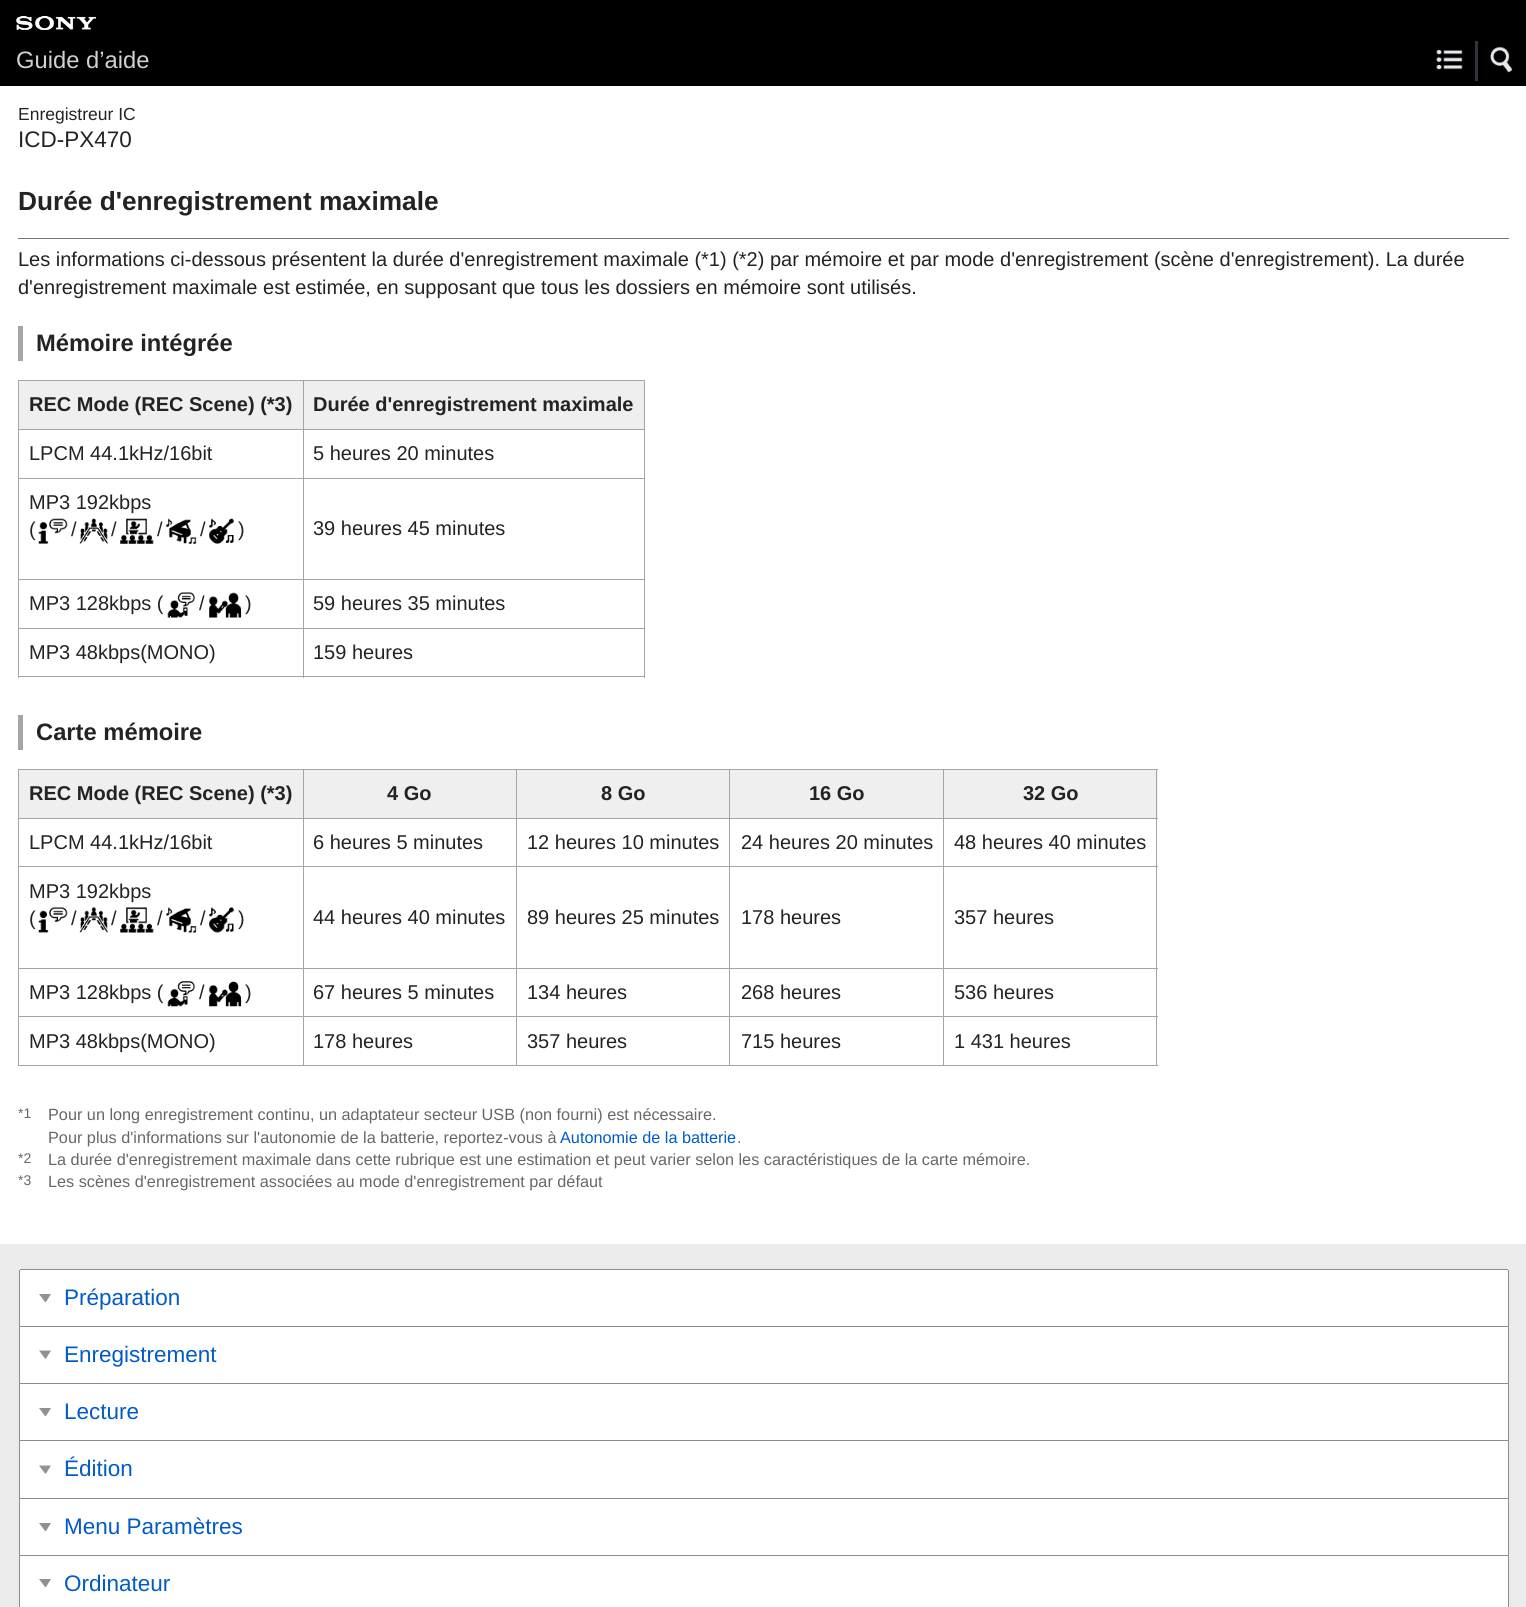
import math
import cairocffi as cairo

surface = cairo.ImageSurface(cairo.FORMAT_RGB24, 1526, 1607)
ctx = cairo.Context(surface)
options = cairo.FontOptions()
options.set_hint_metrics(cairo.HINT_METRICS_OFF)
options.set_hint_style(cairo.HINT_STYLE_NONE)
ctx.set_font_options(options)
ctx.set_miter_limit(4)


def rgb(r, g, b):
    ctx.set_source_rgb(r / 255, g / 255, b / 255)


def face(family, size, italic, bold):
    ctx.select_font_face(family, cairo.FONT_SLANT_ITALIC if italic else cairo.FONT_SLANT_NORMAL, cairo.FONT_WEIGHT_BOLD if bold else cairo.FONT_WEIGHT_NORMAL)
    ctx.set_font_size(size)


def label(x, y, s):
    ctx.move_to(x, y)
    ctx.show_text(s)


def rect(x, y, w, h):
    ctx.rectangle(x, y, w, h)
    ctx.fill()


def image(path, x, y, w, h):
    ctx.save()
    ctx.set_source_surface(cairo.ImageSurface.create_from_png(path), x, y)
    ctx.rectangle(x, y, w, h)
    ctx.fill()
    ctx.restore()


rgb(255, 255, 255)
ctx.paint()
rgb(0, 0, 0)
rect(0, 0, 1526, 86)
image('image0.png', 16, 15, 80, 15)
face('Liberation Sans', 23.75, 0, 0)
rgb(210, 210, 210)
label(16, 68, 'Guide d’aide')
face('Liberation Sans', 17.5, 0, 0)
rgb(35, 35, 35)
label(18, 120, 'Enregistreur IC')
face('Liberation Sans', 22.5, 0, 0)
label(18, 147, 'ICD-PX470')
rgb(47, 53, 61)
rect(1475, 41, 3, 40)
image('image1.png', 1436, 49, 27, 21)
image('image2.png', 1490, 46, 23, 27)
rgb(118, 118, 118)
rect(18, 238, 1491, 1)
face('Liberation Sans', 26.25, 0, 1)
rgb(35, 35, 35)
label(18, 210, 'Durée d\'enregistrement maximale')
face('Liberation Sans', 20, 0, 0)
label(18, 266, 'Les informations ci-dessous présentent la durée d\'enregistrement maximale (*1) (*2) par mémoire et par mode d\'enregistrement (scène d\'enregistrement). La durée')
label(18, 294, 'd\'enregistrement maximale est estimée, en supposant que tous les dossiers en mémoire sont utilisés.')
rgb(165, 165, 165)
rect(18, 326, 5, 35)
face('Liberation Sans', 23.75, 0, 1)
rgb(35, 35, 35)
label(36, 351, 'Mémoire intégrée')
rgb(239, 239, 239)
rect(19, 381, 284, 48)
rgb(165, 165, 165)
rect(303, 380, 342, 1)
rect(303, 429, 342, 1)
rect(303, 478, 342, 1)
rect(303, 579, 342, 1)
rect(303, 628, 342, 1)
rect(644, 628, 1, 50)
rect(303, 676, 342, 1)
rect(303, 628, 1, 50)
rect(18, 628, 286, 1)
rect(303, 579, 1, 50)
rect(18, 579, 286, 1)
rect(303, 478, 1, 102)
rect(18, 478, 286, 1)
rect(303, 429, 1, 50)
rect(18, 429, 286, 1)
rect(303, 380, 1, 50)
rect(18, 380, 286, 1)
rect(18, 676, 286, 1)
rect(18, 628, 1, 50)
rect(18, 579, 1, 50)
rect(18, 478, 1, 102)
rect(18, 429, 1, 50)
rect(18, 380, 1, 50)
face('Liberation Sans', 20, 0, 1)
rgb(35, 35, 35)
label(29, 411, 'REC Mode (REC Scene) (*3)')
rgb(239, 239, 239)
rect(304, 381, 340, 48)
rgb(165, 165, 165)
rect(644, 579, 1, 50)
rect(644, 478, 1, 102)
rect(644, 429, 1, 50)
rect(644, 380, 1, 50)
rgb(35, 35, 35)
label(313, 411, 'Durée d\'enregistrement maximale')
face('Liberation Sans', 20, 0, 0)
label(29, 460, 'LPCM 44.1kHz/16bit')
label(313, 460, '5 heures 20 minutes')
label(29, 509, 'MP3 192kbps')
label(29, 536, '(')
image('image3.png', 38, 518, 30, 26)
label(71, 536, '/')
image('image4.png', 79, 518, 30, 26)
label(111, 536, '/')
image('image5.png', 120, 518, 34, 26)
label(157, 536, '/')
image('image6.png', 166, 518, 31, 26)
label(200, 536, '/')
image('image7.png', 209, 518, 25, 26)
label(238, 536, ')')
label(313, 535, '39 heures 45 minutes')
label(29, 610, 'MP3 128kbps (')
image('image8.png', 167, 592, 28, 26)
label(199, 610, '/')
image('image9.png', 209, 592, 33, 26)
label(245, 610, ')')
label(313, 610, '59 heures 35 minutes')
label(29, 659, 'MP3 48kbps(MONO)')
label(313, 659, '159 heures')
rgb(165, 165, 165)
rect(18, 715, 5, 35)
face('Liberation Sans', 23.75, 0, 1)
rgb(35, 35, 35)
label(36, 740, 'Carte mémoire')
rgb(239, 239, 239)
rect(19, 770, 284, 48)
rgb(165, 165, 165)
rect(943, 769, 215, 1)
rect(943, 818, 215, 1)
rect(943, 866, 215, 1)
rect(943, 968, 215, 1)
rect(943, 1016, 215, 1)
rect(1156, 1016, 1, 50)
rect(943, 1065, 215, 1)
rect(943, 1016, 1, 50)
rect(729, 1016, 215, 1)
rect(943, 968, 1, 50)
rect(729, 968, 215, 1)
rect(943, 866, 1, 103)
rect(729, 866, 215, 1)
rect(943, 818, 1, 50)
rect(729, 818, 215, 1)
rect(943, 769, 1, 50)
rect(729, 769, 215, 1)
rect(729, 1065, 215, 1)
rect(729, 1016, 1, 50)
rect(516, 1016, 214, 1)
rect(729, 968, 1, 50)
rect(516, 968, 214, 1)
rect(729, 866, 1, 103)
rect(516, 866, 214, 1)
rect(729, 818, 1, 50)
rect(516, 818, 214, 1)
rect(729, 769, 1, 50)
rect(516, 769, 214, 1)
rect(516, 1065, 214, 1)
rect(516, 1016, 1, 50)
rect(303, 1016, 215, 1)
rect(516, 968, 1, 50)
rect(303, 968, 215, 1)
rect(516, 866, 1, 103)
rect(303, 866, 215, 1)
rect(516, 818, 1, 50)
rect(303, 818, 215, 1)
rect(516, 769, 1, 50)
rect(303, 769, 215, 1)
rect(303, 1065, 215, 1)
rect(303, 1016, 1, 50)
rect(18, 1016, 286, 1)
rect(303, 968, 1, 50)
rect(18, 968, 286, 1)
rect(303, 866, 1, 103)
rect(18, 866, 286, 1)
rect(303, 818, 1, 50)
rect(18, 818, 286, 1)
rect(303, 769, 1, 50)
rect(18, 769, 286, 1)
rect(18, 1065, 286, 1)
rect(18, 1016, 1, 50)
rect(18, 968, 1, 50)
rect(18, 866, 1, 103)
rect(18, 818, 1, 50)
rect(18, 769, 1, 50)
face('Liberation Sans', 20, 0, 1)
rgb(35, 35, 35)
label(29, 800, 'REC Mode (REC Scene) (*3)')
rgb(239, 239, 239)
rect(304, 770, 212, 48)
rgb(35, 35, 35)
label(387, 800, '4 Go')
rgb(239, 239, 239)
rect(517, 770, 212, 48)
rgb(35, 35, 35)
label(601, 800, '8 Go')
rgb(239, 239, 239)
rect(730, 770, 213, 48)
rgb(35, 35, 35)
label(809, 800, '16 Go')
rgb(239, 239, 239)
rect(944, 770, 214, 48)
rgb(165, 165, 165)
rect(1156, 968, 1, 50)
rect(1156, 866, 1, 103)
rect(1156, 818, 1, 50)
rect(1156, 769, 1, 50)
rgb(35, 35, 35)
label(1023, 800, '32 Go')
face('Liberation Sans', 20, 0, 0)
label(29, 849, 'LPCM 44.1kHz/16bit')
label(313, 849, '6 heures 5 minutes')
label(527, 849, '12 heures 10 minutes')
label(741, 849, '24 heures 20 minutes')
label(954, 849, '48 heures 40 minutes')
label(29, 898, 'MP3 192kbps')
label(29, 925, '(')
image('image10.png', 38, 907, 30, 26)
label(71, 925, '/')
image('image11.png', 79, 907, 30, 26)
label(111, 925, '/')
image('image12.png', 120, 907, 34, 26)
label(157, 925, '/')
image('image13.png', 166, 907, 31, 26)
label(200, 925, '/')
image('image14.png', 209, 907, 25, 26)
label(238, 925, ')')
label(313, 924, '44 heures 40 minutes')
label(527, 924, '89 heures 25 minutes')
label(741, 924, '178 heures')
label(954, 924, '357 heures')
label(29, 999, 'MP3 128kbps (')
image('image15.png', 167, 981, 28, 26)
label(199, 999, '/')
image('image16.png', 209, 981, 33, 26)
label(245, 999, ')')
label(313, 999, '67 heures 5 minutes')
label(527, 999, '134 heures')
label(741, 999, '268 heures')
label(954, 999, '536 heures')
label(29, 1048, 'MP3 48kbps(MONO)')
label(313, 1048, '178 heures')
label(527, 1048, '357 heures')
label(741, 1048, '715 heures')
label(954, 1048, '1 431 heures')
face('Liberation Sans', 14, 0, 0)
rgb(103, 103, 103)
label(18, 1118, '*1')
face('Liberation Sans', 16.25, 0, 0)
label(48, 1120, 'Pour un long enregistrement continu, un adaptateur secteur USB (non fourni) est nécessaire.')
label(48, 1143, 'Pour plus d\'informations sur l\'autonomie de la batterie, reportez-vous à')
rgb(0, 91, 200)
label(560, 1143, 'Autonomie de la batterie')
rgb(103, 103, 103)
label(737, 1143, '.')
face('Liberation Sans', 14, 0, 0)
label(18, 1163, '*2')
face('Liberation Sans', 16.25, 0, 0)
label(48, 1165, 'La durée d\'enregistrement maximale dans cette rubrique est une estimation et peut varier selon les caractéristiques de la carte mémoire.')
face('Liberation Sans', 14, 0, 0)
label(18, 1185, '*3')
face('Liberation Sans', 16.25, 0, 0)
label(48, 1187, 'Les scènes d\'enregistrement associées au mode d\'enregistrement par défaut')
rgb(235, 235, 235)
rect(0, 1244, 1526, 363)
rgb(255, 255, 255)
rect(19, 1269, 1490, 338)
rgb(141, 141, 141)
rect(20, 1269, 1488, 1)
rect(1508, 1270, 1, 56)
rect(19, 1270, 1, 56)
rgb(145, 145, 145)
ctx.new_path()
ctx.move_to(39, 1294)
ctx.line_to(45, 1302)
ctx.line_to(46, 1302)
ctx.line_to(51, 1294)
ctx.close_path()
ctx.fill()
face('Liberation Sans', 22.5, 0, 0)
rgb(0, 91, 200)
label(64, 1305, 'Préparation')
rgb(141, 141, 141)
rect(19, 1326, 1490, 1)
rect(1508, 1326, 1, 57)
rect(19, 1326, 1, 57)
rgb(145, 145, 145)
ctx.new_path()
ctx.move_to(39, 1350.5)
ctx.line_to(45, 1358.5)
ctx.line_to(46, 1358.5)
ctx.line_to(51, 1350.5)
ctx.close_path()
ctx.fill()
rgb(0, 91, 200)
label(64, 1362, 'Enregistrement')
rgb(141, 141, 141)
rect(19, 1383, 1490, 1)
rect(1508, 1383, 1, 57)
rect(19, 1383, 1, 57)
rgb(145, 145, 145)
ctx.new_path()
ctx.move_to(39, 1408)
ctx.line_to(45, 1416)
ctx.line_to(46, 1416)
ctx.line_to(51, 1408)
ctx.close_path()
ctx.fill()
rgb(0, 91, 200)
label(64, 1419, 'Lecture')
rgb(141, 141, 141)
rect(19, 1440, 1490, 1)
rect(1508, 1440, 1, 58)
rect(19, 1440, 1, 58)
rgb(145, 145, 145)
ctx.new_path()
ctx.move_to(39, 1465.5)
ctx.line_to(45, 1473.5)
ctx.line_to(46, 1473.5)
ctx.line_to(51, 1465.5)
ctx.close_path()
ctx.fill()
rgb(0, 91, 200)
label(64, 1476, 'Édition')
rgb(141, 141, 141)
rect(19, 1498, 1490, 1)
rect(1508, 1498, 1, 57)
rect(19, 1498, 1, 57)
rgb(145, 145, 145)
ctx.new_path()
ctx.move_to(39, 1523)
ctx.line_to(45, 1531)
ctx.line_to(46, 1531)
ctx.line_to(51, 1523)
ctx.close_path()
ctx.fill()
rgb(0, 91, 200)
label(64, 1534, 'Menu Paramètres')
rgb(141, 141, 141)
rect(19, 1555, 1490, 1)
rect(1508, 1555, 1, 52)
rect(19, 1555, 1, 52)
rgb(145, 145, 145)
ctx.new_path()
ctx.move_to(39, 1579)
ctx.line_to(45, 1587)
ctx.line_to(46, 1587)
ctx.line_to(51, 1579)
ctx.close_path()
ctx.fill()
rgb(0, 91, 200)
label(64, 1591, 'Ordinateur')
surface.write_to_png('render.png')
